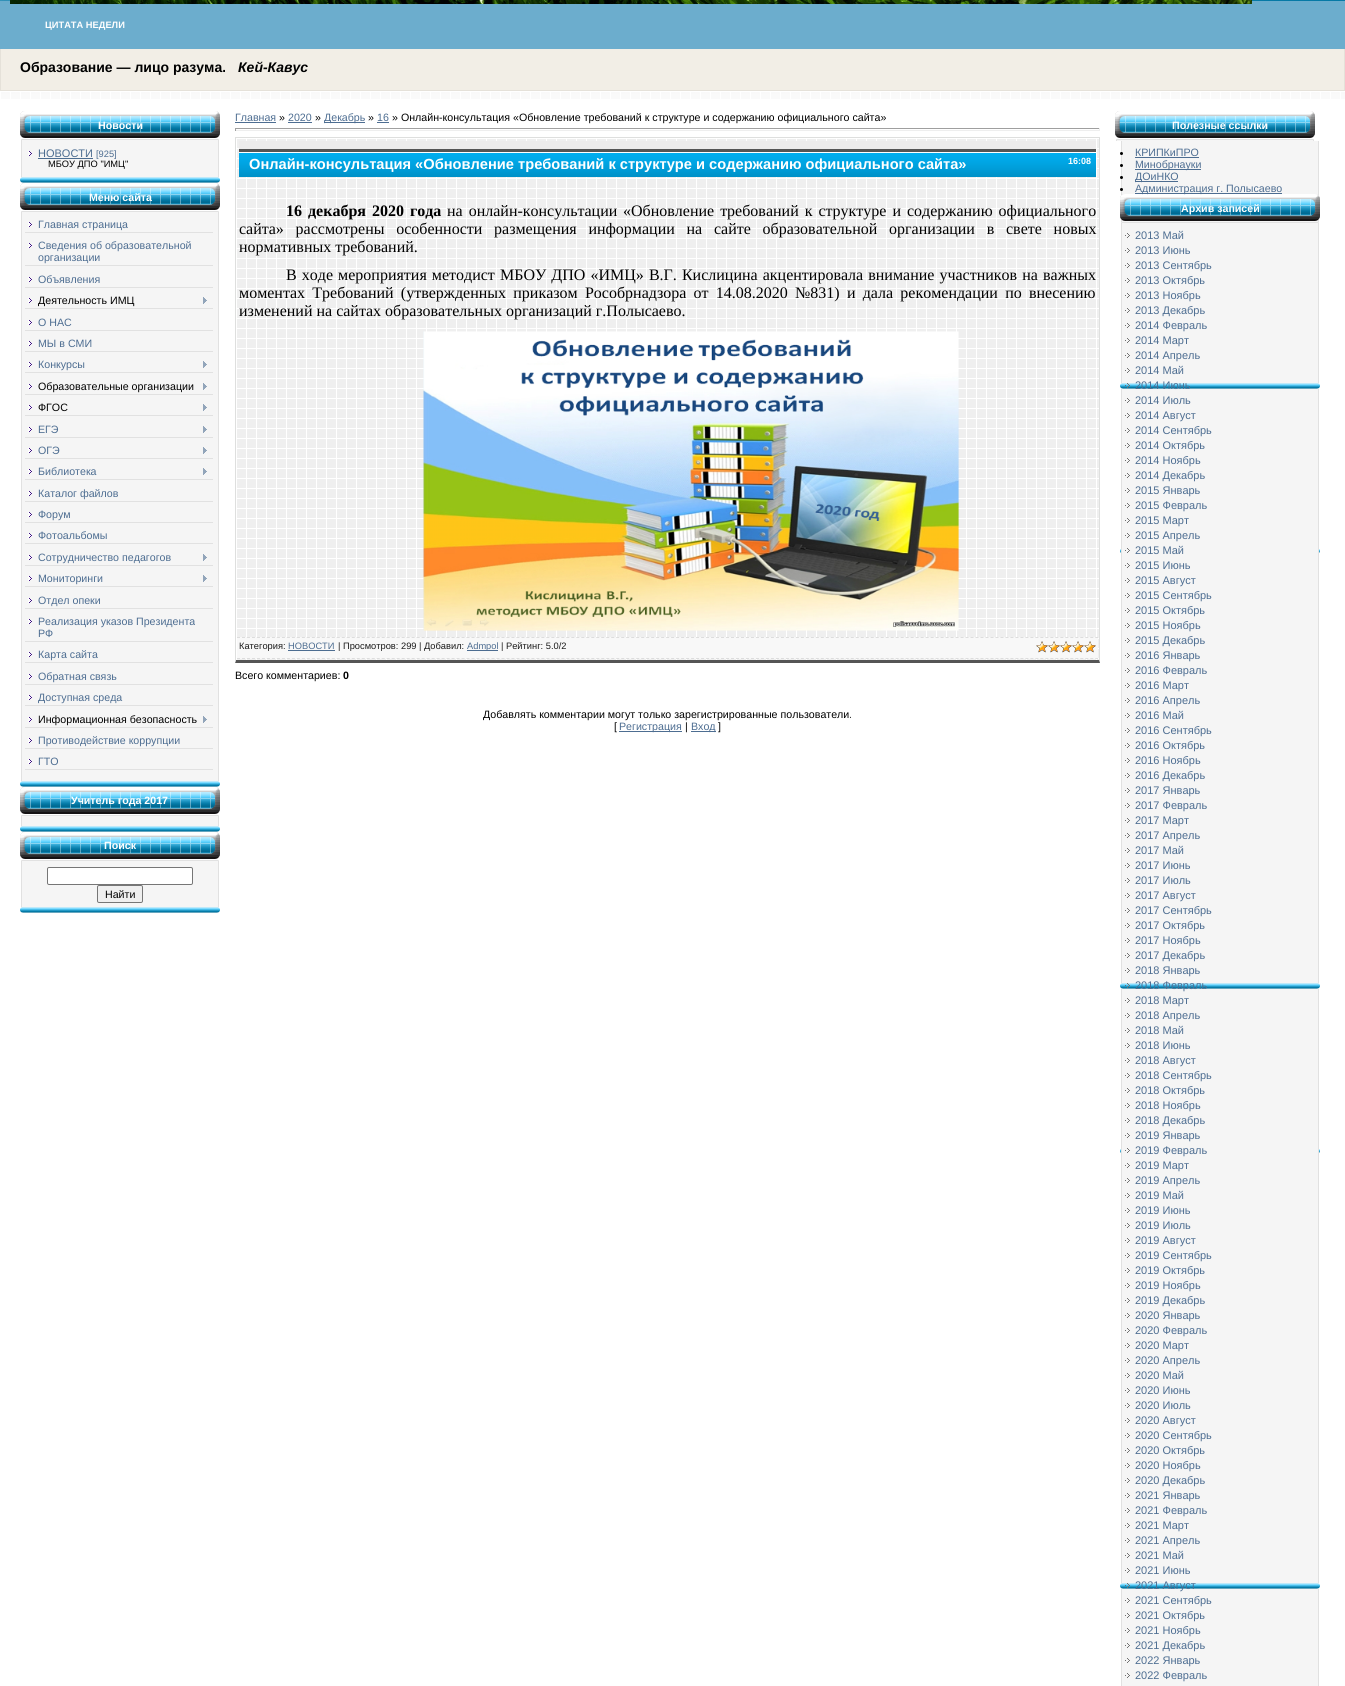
import math
import cairocffi as cairo

surface = cairo.ImageSurface(cairo.FORMAT_RGB24, 1345, 1686)
ctx = cairo.Context(surface)
options = cairo.FontOptions()
options.set_hint_metrics(cairo.HINT_METRICS_OFF)
options.set_hint_style(cairo.HINT_STYLE_NONE)
ctx.set_font_options(options)
ctx.set_miter_limit(4)


def rgb(r, g, b):
    ctx.set_source_rgb(r / 255, g / 255, b / 255)


def face(family, size, italic, bold):
    ctx.select_font_face(family, cairo.FONT_SLANT_ITALIC if italic else cairo.FONT_SLANT_NORMAL, cairo.FONT_WEIGHT_BOLD if bold else cairo.FONT_WEIGHT_NORMAL)
    ctx.set_font_size(size)


def label(x, y, s):
    ctx.move_to(x, y)
    ctx.show_text(s)


def tracked(x, y, s, letter, word):
    ctx.move_to(x, y)
    for ch in s:
        ctx.show_text(ch)
        ctx.rel_move_to(letter + word * (ch == ' '), 0)


def rect(x, y, w, h):
    ctx.rectangle(x, y, w, h)
    ctx.fill()


def rrect(x, y, w, h, r):
    ctx.new_sub_path()
    for i, (u, v) in enumerate([(x + w - r, y + h - r), (x + r, y + h - r), (x + r, y + r), (x + w - r, y + r)]):
        ctx.arc(u, v, r, i * math.pi / 2, (i + 1) * math.pi / 2)
    ctx.close_path()


def image(path, x, y, w, h):
    ctx.save()
    ctx.set_source_surface(cairo.ImageSurface.create_from_png(path), x, y)
    ctx.rectangle(x, y, w, h)
    ctx.fill()
    ctx.restore()


rgb(255, 255, 255)
ctx.paint()
image('image0.png', 0, 0, 1345, 99)
image('image1.png', 0, 0, 10, 1)
rgb(108, 173, 205)
rect(0, 1, 1345, 48)
image('image2.png', 10, 0, 1242, 4)
face('Liberation Sans', 9.3, 0, 1)
rgb(255, 255, 255)
label(45, 28, 'ЦИТАТА НЕДЕЛИ')
rgb(242, 238, 230)
rect(1, 49, 1343, 41)
rgb(229, 225, 217)
rect(1344, 49, 1, 42)
rect(0, 90, 1345, 1)
rect(0, 49, 1, 42)
face('Liberation Sans', 14, 0, 1)
rgb(0, 0, 0)
label(20, 72, 'Образование — лицо разума.')
face('Liberation Sans', 14, 1, 1)
label(238, 72, 'Кей-Кавус')
image('image3.png', 20, 111, 200, 30)
face('Liberation Sans', 10.65, 0, 1)
rgb(255, 255, 255)
label(98, 129, 'Новости')
image('image4.png', 20, 141, 200, 42)
image('image5.png', 28, 151, 4, 5)
face('Liberation Sans', 11, 0, 0)
rgb(77, 109, 145)
label(38, 157, 'НОВОСТИ')
rect(38, 158, 55, 1)
face('Liberation Sans', 9.3, 0, 0)
label(96, 157, '[925]')
rgb(0, 0, 0)
label(48, 167, 'МБОУ ДПО "ИМЦ"')
image('image3.png', 20, 183, 200, 30)
face('Liberation Sans', 10.65, 0, 1)
rgb(255, 255, 255)
label(89, 201, 'Меню сайта')
image('image6.png', 20, 213, 200, 574)
image('image5.png', 28, 222, 4, 5)
rgb(225, 225, 225)
rect(25, 232, 188, 1)
face('Liberation Sans', 10.65, 0, 0)
rgb(77, 109, 145)
label(38, 228, 'Главная страница')
image('image5.png', 28, 243, 4, 5)
rgb(225, 225, 225)
rect(25, 265, 188, 1)
rgb(77, 109, 145)
label(38, 249, 'Сведения об образовательной')
label(38, 261, 'организации')
image('image5.png', 28, 277, 4, 5)
rgb(225, 225, 225)
rect(25, 287, 188, 1)
rgb(77, 109, 145)
label(38, 283, 'Объявления')
image('image5.png', 28, 298, 4, 5)
rgb(225, 225, 225)
rect(25, 308, 188, 1)
rgb(0, 0, 0)
label(38, 304, 'Деятельность ИМЦ')
image('image7.png', 203, 297, 4, 7)
image('image5.png', 28, 320, 4, 5)
rgb(225, 225, 225)
rect(25, 330, 188, 1)
rgb(77, 109, 145)
label(38, 326, 'О НАС')
image('image5.png', 28, 341, 4, 5)
rgb(225, 225, 225)
rect(25, 351, 188, 1)
rgb(77, 109, 145)
label(38, 347, 'МЫ в СМИ')
image('image5.png', 28, 362, 4, 5)
rgb(225, 225, 225)
rect(25, 372, 188, 1)
rgb(77, 109, 145)
label(38, 368, 'Конкурсы')
image('image7.png', 203, 361, 4, 7)
image('image5.png', 28, 384, 4, 5)
rgb(225, 225, 225)
rect(25, 394, 188, 1)
rgb(0, 0, 0)
label(38, 390, 'Образовательные организации')
image('image7.png', 203, 383, 4, 7)
image('image5.png', 28, 405, 4, 5)
rgb(225, 225, 225)
rect(25, 415, 188, 1)
rgb(0, 0, 0)
label(38, 411, 'ФГОС')
image('image7.png', 203, 404, 4, 7)
image('image5.png', 28, 427, 4, 5)
rgb(225, 225, 225)
rect(25, 437, 188, 1)
rgb(77, 109, 145)
label(38, 433, 'ЕГЭ')
image('image7.png', 203, 426, 4, 7)
image('image5.png', 28, 448, 4, 5)
rgb(225, 225, 225)
rect(25, 458, 188, 1)
rgb(77, 109, 145)
label(38, 454, 'ОГЭ')
image('image7.png', 203, 447, 4, 7)
image('image5.png', 28, 469, 4, 5)
rgb(225, 225, 225)
rect(25, 479, 188, 1)
rgb(77, 109, 145)
label(38, 475, 'Библиотека')
image('image7.png', 203, 468, 4, 7)
image('image5.png', 28, 491, 4, 5)
rgb(225, 225, 225)
rect(25, 501, 188, 1)
rgb(77, 109, 145)
label(38, 497, 'Каталог файлов')
image('image5.png', 28, 512, 4, 5)
rgb(225, 225, 225)
rect(25, 522, 188, 1)
rgb(77, 109, 145)
label(38, 518, 'Форум')
image('image5.png', 28, 533, 4, 5)
rgb(225, 225, 225)
rect(25, 543, 188, 1)
rgb(77, 109, 145)
label(38, 539, 'Фотоальбомы')
image('image5.png', 28, 555, 4, 5)
rgb(225, 225, 225)
rect(25, 565, 188, 1)
rgb(77, 109, 145)
label(38, 561, 'Сотрудничество педагогов')
image('image7.png', 203, 554, 4, 7)
image('image5.png', 28, 576, 4, 5)
rgb(225, 225, 225)
rect(25, 586, 188, 1)
rgb(77, 109, 145)
label(38, 582, 'Мониторинги')
image('image7.png', 203, 575, 4, 7)
image('image5.png', 28, 598, 4, 5)
rgb(225, 225, 225)
rect(25, 608, 188, 1)
rgb(77, 109, 145)
label(38, 604, 'Отдел опеки')
image('image5.png', 28, 619, 4, 5)
rgb(225, 225, 225)
rect(25, 641, 188, 1)
rgb(77, 109, 145)
label(38, 625, 'Реализация указов Президента')
label(38, 637, 'РФ')
image('image5.png', 28, 652, 4, 5)
rgb(225, 225, 225)
rect(25, 662, 188, 1)
rgb(77, 109, 145)
label(38, 658, 'Карта сайта')
image('image5.png', 28, 674, 4, 5)
rgb(225, 225, 225)
rect(25, 684, 188, 1)
rgb(77, 109, 145)
label(38, 680, 'Обратная связь')
image('image5.png', 28, 695, 4, 5)
rgb(225, 225, 225)
rect(25, 705, 188, 1)
rgb(77, 109, 145)
label(38, 701, 'Доступная среда')
image('image5.png', 28, 717, 4, 5)
rgb(225, 225, 225)
rect(25, 727, 188, 1)
rgb(0, 0, 0)
label(38, 723, 'Информационная безопасность')
image('image7.png', 203, 716, 4, 7)
image('image5.png', 28, 738, 4, 5)
rgb(225, 225, 225)
rect(25, 748, 188, 1)
rgb(77, 109, 145)
label(38, 744, 'Противодействие коррупции')
image('image5.png', 28, 759, 4, 5)
rgb(225, 225, 225)
rect(25, 769, 188, 1)
rgb(77, 109, 145)
label(38, 765, 'ГТО')
image('image3.png', 20, 787, 200, 30)
face('Liberation Sans', 10.65, 0, 1)
rgb(255, 255, 255)
label(71, 804, 'Учитель года 2017')
image('image8.png', 20, 817, 200, 15)
image('image3.png', 20, 832, 200, 30)
label(104, 849, 'Поиск')
image('image9.png', 20, 862, 200, 51)
rrect(47.5, 867.5, 145, 17, 1.5)
ctx.fill_preserve()
rgb(118, 118, 118)
ctx.set_line_width(1)
ctx.stroke()
rgb(239, 239, 239)
rrect(97.5, 885.5, 45, 17, 1.5)
ctx.fill_preserve()
rgb(118, 118, 118)
ctx.stroke()
face('Liberation Sans', 10.65, 0, 0)
rgb(0, 0, 0)
label(105, 898, 'Найти')
rgb(77, 109, 145)
label(235, 121, 'Главная')
rect(235, 122, 41, 1)
rgb(0, 0, 0)
label(279, 121, '»')
rgb(77, 109, 145)
label(288, 121, '2020')
rect(288, 122, 24, 1)
rgb(0, 0, 0)
label(315, 121, '»')
rgb(77, 109, 145)
rect(324, 122, 41, 1)
label(324, 121, 'Декабрь')
rgb(0, 0, 0)
label(368, 121, '»')
rgb(77, 109, 145)
label(377, 121, '16')
rect(377, 122, 12, 1)
rgb(0, 0, 0)
label(392, 121, '» Онлайн-консультация «Обновление требований к структуре и содержанию официального сайта»')
rgb(159, 159, 159)
rect(235, 128, 865, 1)
rgb(238, 238, 238)
rect(1099, 128, 1, 3)
rect(235, 130, 865, 1)
rgb(159, 159, 159)
rect(235, 128, 1, 3)
image('image10.png', 235, 138, 865, 525)
rgb(222, 223, 222)
rect(235, 137, 865, 1)
ctx.new_path()
ctx.move_to(1100, 137)
ctx.line_to(1100, 663)
ctx.line_to(1099, 660)
ctx.line_to(1099, 138)
ctx.close_path()
ctx.fill()
rgb(85, 85, 85)
ctx.new_path()
ctx.move_to(1100, 663)
ctx.line_to(235, 663)
ctx.line_to(236, 660)
ctx.line_to(1099, 660)
ctx.close_path()
ctx.fill()
rgb(222, 223, 222)
ctx.new_path()
ctx.move_to(235, 663)
ctx.line_to(235, 137)
ctx.line_to(236, 138)
ctx.line_to(236, 660)
ctx.close_path()
ctx.fill()
image('image11.png', 239, 141, 857, 36)
face('Liberation Sans', 14.65, 0, 1)
rgb(255, 255, 255)
label(249, 169, 'Онлайн-консультация «Обновление требований к структуре и содержанию официального сайта»')
face('Liberation Sans', 9, 0, 1)
label(1068, 164, '16:08')
face('Liberation Serif', 16, 0, 1)
rgb(0, 0, 0)
tracked(286, 216, '16 декабря 2020 года', 0, 2)
face('Liberation Serif', 16, 0, 0)
tracked(447, 216, 'на онлайн-консультации', 0, 2)
label(623, 216, '«')
tracked(631, 216, 'Обновление требований к структуре и содержанию официального', 0, 2)
tracked(239, 234, 'сайта» рассмотрены особенности размещения информации на сайте образовательной организации в свете новых', 0, 7.75)
label(239, 252, 'нормативных требований.')
tracked(286, 280, 'В ходе мероприятия методист МБОУ ДПО «ИМЦ» В.Г. Кислицина акцентировала внимание участников на важных', 0, 1.1)
tracked(239, 298, 'моментах Требований (утвержденных приказом Рособрнадзора от 14.08.2020 №831) и дала рекомендации по внесению', 0, 3.25)
label(239, 316, 'изменений на сайтах образовательных организаций г.Полысаево.')
image('image12.png', 423, 331, 536, 300)
rgb(248, 248, 248)
rect(237, 637, 861, 22)
ctx.new_path()
ctx.move_to(237, 637.5)
ctx.line_to(1098, 637.5)
rgb(221, 221, 221)
ctx.set_dash([3, 1.99])
ctx.stroke()
ctx.new_path()
ctx.move_to(237, 658.5)
ctx.line_to(1098, 658.5)
ctx.stroke()
face('Liberation Sans', 9.3, 0, 0)
rgb(26, 26, 26)
label(239, 649, 'Категория:')
rgb(77, 109, 145)
label(288, 649, 'НОВОСТИ')
rect(288, 650, 47, 1)
rgb(26, 26, 26)
label(338, 649, '| Просмотров: 299 | Добавил:')
rgb(77, 109, 145)
rect(467, 650, 31, 1)
label(467, 649, 'Admpol')
rgb(26, 26, 26)
label(501, 649, '| Рейтинг: 5.0/2')
image('image13.png', 1036, 641, 60, 12)
image('image14.png', 1036, 641, 60, 12)
face('Liberation Sans', 10.65, 0, 0)
rgb(0, 0, 0)
label(235, 679, 'Всего комментариев:')
face('Liberation Sans', 10.65, 0, 1)
label(343, 679, '0')
face('Liberation Sans', 10.65, 0, 0)
label(483, 718, 'Добавлять комментарии могут только зарегистрированные пользователи.')
label(614, 730, '[')
rgb(77, 109, 145)
rect(619, 731, 63, 1)
label(619, 730, 'Регистрация')
rgb(0, 0, 0)
label(685, 730, '|')
rgb(77, 109, 145)
rect(691, 731, 25, 1)
label(691, 730, 'Вход')
rgb(0, 0, 0)
label(718, 730, ']')
image('image3.png', 1115, 111, 200, 30)
face('Liberation Sans', 10.65, 0, 1)
rgb(255, 255, 255)
label(1172, 129, 'Полезные ссылки')
image('image15.png', 1120, 141, 200, 1545)
rgb(0, 0, 0)
ctx.arc(1121.5, 153.5, 1.5, 0, 2 * math.pi)
ctx.fill()
face('Liberation Sans', 10.65, 0, 0)
rgb(77, 109, 145)
label(1135, 156, 'КРИПКиПРО')
rect(1135, 157, 64, 1)
rgb(0, 0, 0)
ctx.new_path()
ctx.arc(1121.5, 165.5, 1.5, 0, 2 * math.pi)
ctx.fill()
rgb(77, 109, 145)
rect(1135, 169, 66, 1)
label(1135, 168, 'Минобрнауки')
rgb(0, 0, 0)
ctx.new_path()
ctx.arc(1121.5, 177.5, 1.5, 0, 2 * math.pi)
ctx.fill()
rgb(77, 109, 145)
rect(1135, 181, 43, 1)
label(1135, 180, 'ДОиНКО')
rgb(0, 0, 0)
ctx.new_path()
ctx.arc(1121.5, 189.5, 1.5, 0, 2 * math.pi)
ctx.fill()
rgb(77, 109, 145)
rect(1135, 193, 147, 1)
image('image16.png', 1120, 194, 200, 29)
label(1135, 192, 'Администрация г. Полысаево')
face('Liberation Sans', 10.65, 0, 1)
rgb(255, 255, 255)
label(1181, 212, 'Архив записей')
image('image17.png', 1120, 383, 200, 1206)
image('image18.png', 1125, 233, 5, 5)
face('Liberation Sans', 11, 0, 0)
rgb(77, 109, 145)
label(1135, 239, '2013 Май')
image('image18.png', 1125, 248, 5, 5)
label(1135, 254, '2013 Июнь')
image('image18.png', 1125, 263, 5, 5)
label(1135, 269, '2013 Сентябрь')
image('image18.png', 1125, 278, 5, 5)
label(1135, 284, '2013 Октябрь')
image('image18.png', 1125, 293, 5, 5)
label(1135, 299, '2013 Ноябрь')
image('image18.png', 1125, 308, 5, 5)
label(1135, 314, '2013 Декабрь')
image('image18.png', 1125, 323, 5, 5)
label(1135, 329, '2014 Февраль')
image('image18.png', 1125, 338, 5, 5)
label(1135, 344, '2014 Март')
image('image18.png', 1125, 353, 5, 5)
label(1135, 359, '2014 Апрель')
image('image18.png', 1125, 368, 5, 5)
label(1135, 374, '2014 Май')
image('image19.png', 1125, 383, 5, 5)
label(1135, 389, '2014 Июнь')
image('image18.png', 1125, 398, 5, 5)
label(1135, 404, '2014 Июль')
image('image18.png', 1125, 413, 5, 5)
label(1135, 419, '2014 Август')
image('image18.png', 1125, 428, 5, 5)
label(1135, 434, '2014 Сентябрь')
image('image18.png', 1125, 443, 5, 5)
label(1135, 449, '2014 Октябрь')
image('image18.png', 1125, 458, 5, 5)
label(1135, 464, '2014 Ноябрь')
image('image18.png', 1125, 473, 5, 5)
label(1135, 479, '2014 Декабрь')
image('image18.png', 1125, 488, 5, 5)
label(1135, 494, '2015 Январь')
image('image18.png', 1125, 503, 5, 5)
label(1135, 509, '2015 Февраль')
image('image18.png', 1125, 518, 5, 5)
label(1135, 524, '2015 Март')
image('image18.png', 1125, 533, 5, 5)
label(1135, 539, '2015 Апрель')
image('image18.png', 1125, 548, 5, 5)
label(1135, 554, '2015 Май')
image('image18.png', 1125, 563, 5, 5)
label(1135, 569, '2015 Июнь')
image('image18.png', 1125, 578, 5, 5)
label(1135, 584, '2015 Август')
image('image18.png', 1125, 593, 5, 5)
label(1135, 599, '2015 Сентябрь')
image('image18.png', 1125, 608, 5, 5)
label(1135, 614, '2015 Октябрь')
image('image18.png', 1125, 623, 5, 5)
label(1135, 629, '2015 Ноябрь')
image('image18.png', 1125, 638, 5, 5)
label(1135, 644, '2015 Декабрь')
image('image18.png', 1125, 653, 5, 5)
label(1135, 659, '2016 Январь')
image('image18.png', 1125, 668, 5, 5)
label(1135, 674, '2016 Февраль')
image('image18.png', 1125, 683, 5, 5)
label(1135, 689, '2016 Март')
image('image18.png', 1125, 698, 5, 5)
label(1135, 704, '2016 Апрель')
image('image18.png', 1125, 713, 5, 5)
label(1135, 719, '2016 Май')
image('image18.png', 1125, 728, 5, 5)
label(1135, 734, '2016 Сентябрь')
image('image18.png', 1125, 743, 5, 5)
label(1135, 749, '2016 Октябрь')
image('image18.png', 1125, 758, 5, 5)
label(1135, 764, '2016 Ноябрь')
image('image18.png', 1125, 773, 5, 5)
label(1135, 779, '2016 Декабрь')
image('image18.png', 1125, 788, 5, 5)
label(1135, 794, '2017 Январь')
image('image18.png', 1125, 803, 5, 5)
label(1135, 809, '2017 Февраль')
image('image18.png', 1125, 818, 5, 5)
label(1135, 824, '2017 Март')
image('image18.png', 1125, 833, 5, 5)
label(1135, 839, '2017 Апрель')
image('image18.png', 1125, 848, 5, 5)
label(1135, 854, '2017 Май')
image('image18.png', 1125, 863, 5, 5)
label(1135, 869, '2017 Июнь')
image('image18.png', 1125, 878, 5, 5)
label(1135, 884, '2017 Июль')
image('image18.png', 1125, 893, 5, 5)
label(1135, 899, '2017 Август')
image('image18.png', 1125, 908, 5, 5)
label(1135, 914, '2017 Сентябрь')
image('image18.png', 1125, 923, 5, 5)
label(1135, 929, '2017 Октябрь')
image('image18.png', 1125, 938, 5, 5)
label(1135, 944, '2017 Ноябрь')
image('image18.png', 1125, 953, 5, 5)
label(1135, 959, '2017 Декабрь')
image('image18.png', 1125, 968, 5, 5)
label(1135, 974, '2018 Январь')
image('image19.png', 1125, 983, 5, 5)
label(1135, 989, '2018 Февраль')
image('image18.png', 1125, 998, 5, 5)
label(1135, 1004, '2018 Март')
image('image18.png', 1125, 1013, 5, 5)
label(1135, 1019, '2018 Апрель')
image('image18.png', 1125, 1028, 5, 5)
label(1135, 1034, '2018 Май')
image('image18.png', 1125, 1043, 5, 5)
label(1135, 1049, '2018 Июнь')
image('image18.png', 1125, 1058, 5, 5)
label(1135, 1064, '2018 Август')
image('image18.png', 1125, 1073, 5, 5)
label(1135, 1079, '2018 Сентябрь')
image('image18.png', 1125, 1088, 5, 5)
label(1135, 1094, '2018 Октябрь')
image('image18.png', 1125, 1103, 5, 5)
label(1135, 1109, '2018 Ноябрь')
image('image18.png', 1125, 1118, 5, 5)
label(1135, 1124, '2018 Декабрь')
image('image18.png', 1125, 1133, 5, 5)
label(1135, 1139, '2019 Январь')
image('image18.png', 1125, 1148, 5, 5)
label(1135, 1154, '2019 Февраль')
image('image18.png', 1125, 1163, 5, 5)
label(1135, 1169, '2019 Март')
image('image18.png', 1125, 1178, 5, 5)
label(1135, 1184, '2019 Апрель')
image('image18.png', 1125, 1193, 5, 5)
label(1135, 1199, '2019 Май')
image('image18.png', 1125, 1208, 5, 5)
label(1135, 1214, '2019 Июнь')
image('image18.png', 1125, 1223, 5, 5)
label(1135, 1229, '2019 Июль')
image('image18.png', 1125, 1238, 5, 5)
label(1135, 1244, '2019 Август')
image('image18.png', 1125, 1253, 5, 5)
label(1135, 1259, '2019 Сентябрь')
image('image18.png', 1125, 1268, 5, 5)
label(1135, 1274, '2019 Октябрь')
image('image18.png', 1125, 1283, 5, 5)
label(1135, 1289, '2019 Ноябрь')
image('image18.png', 1125, 1298, 5, 5)
label(1135, 1304, '2019 Декабрь')
image('image18.png', 1125, 1313, 5, 5)
label(1135, 1319, '2020 Январь')
image('image18.png', 1125, 1328, 5, 5)
label(1135, 1334, '2020 Февраль')
image('image18.png', 1125, 1343, 5, 5)
label(1135, 1349, '2020 Март')
image('image18.png', 1125, 1358, 5, 5)
label(1135, 1364, '2020 Апрель')
image('image18.png', 1125, 1373, 5, 5)
label(1135, 1379, '2020 Май')
image('image18.png', 1125, 1388, 5, 5)
label(1135, 1394, '2020 Июнь')
image('image18.png', 1125, 1403, 5, 5)
label(1135, 1409, '2020 Июль')
image('image18.png', 1125, 1418, 5, 5)
label(1135, 1424, '2020 Август')
image('image18.png', 1125, 1433, 5, 5)
label(1135, 1439, '2020 Сентябрь')
image('image18.png', 1125, 1448, 5, 5)
label(1135, 1454, '2020 Октябрь')
image('image18.png', 1125, 1463, 5, 5)
label(1135, 1469, '2020 Ноябрь')
image('image18.png', 1125, 1478, 5, 5)
label(1135, 1484, '2020 Декабрь')
image('image18.png', 1125, 1493, 5, 5)
label(1135, 1499, '2021 Январь')
image('image18.png', 1125, 1508, 5, 5)
label(1135, 1514, '2021 Февраль')
image('image18.png', 1125, 1523, 5, 5)
label(1135, 1529, '2021 Март')
image('image18.png', 1125, 1538, 5, 5)
label(1135, 1544, '2021 Апрель')
image('image18.png', 1125, 1553, 5, 5)
label(1135, 1559, '2021 Май')
image('image18.png', 1125, 1568, 5, 5)
label(1135, 1574, '2021 Июнь')
image('image19.png', 1125, 1583, 5, 5)
label(1135, 1589, '2021 Август')
image('image18.png', 1125, 1598, 5, 5)
label(1135, 1604, '2021 Сентябрь')
image('image18.png', 1125, 1613, 5, 5)
label(1135, 1619, '2021 Октябрь')
image('image18.png', 1125, 1628, 5, 5)
label(1135, 1634, '2021 Ноябрь')
image('image18.png', 1125, 1643, 5, 5)
label(1135, 1649, '2021 Декабрь')
image('image18.png', 1125, 1658, 5, 5)
label(1135, 1664, '2022 Январь')
image('image18.png', 1125, 1673, 5, 5)
label(1135, 1679, '2022 Февраль')
surface.write_to_png('render.png')
